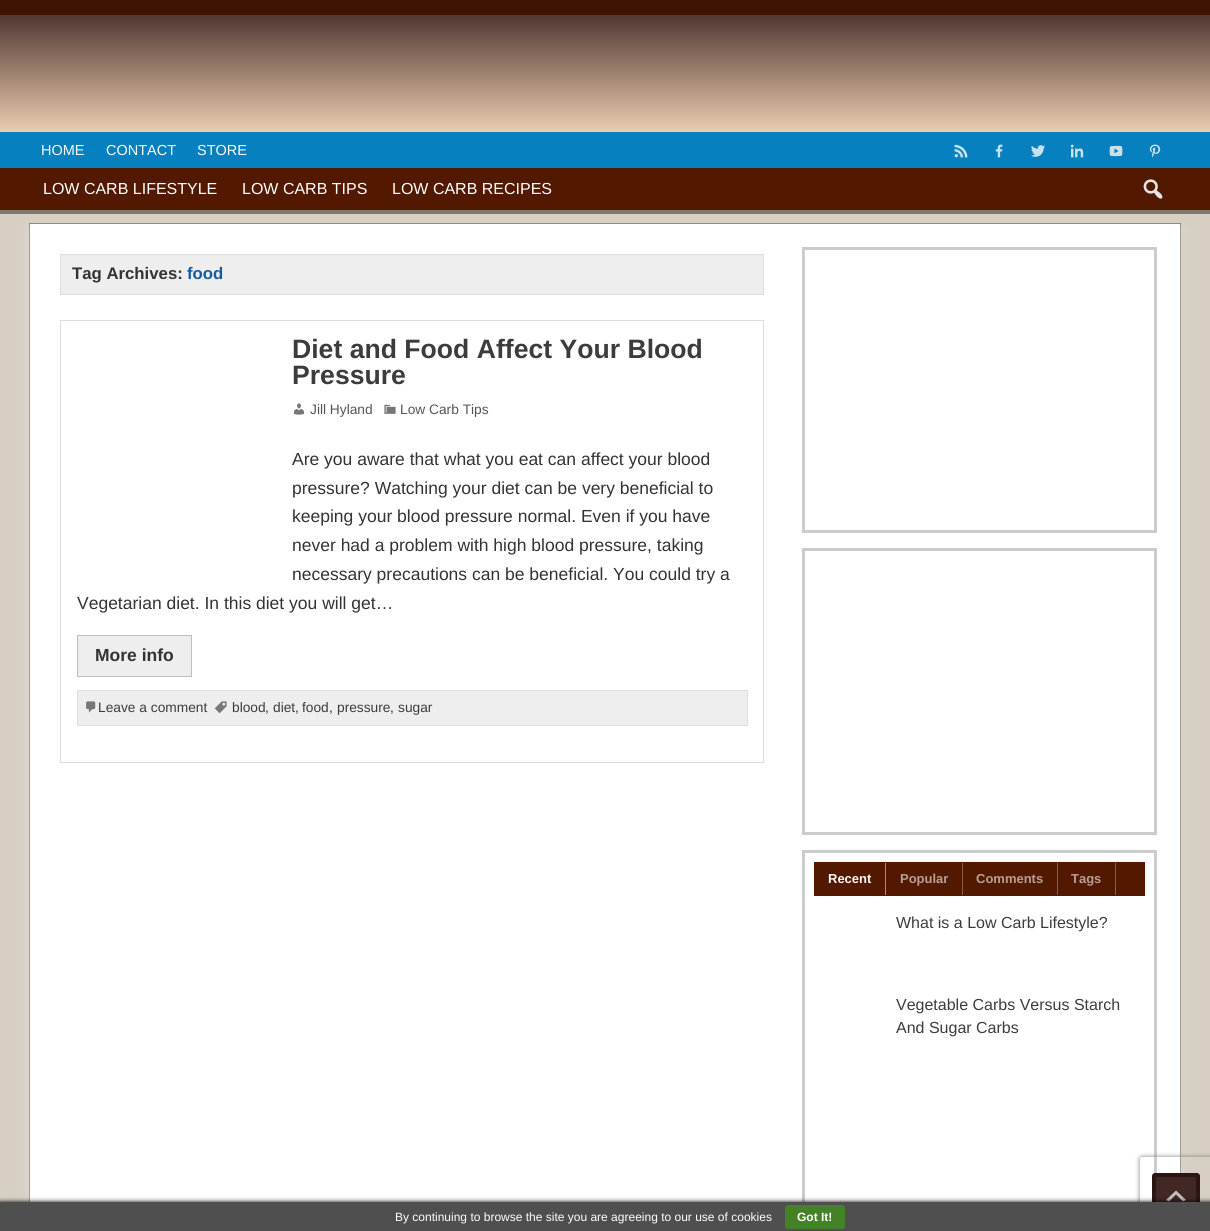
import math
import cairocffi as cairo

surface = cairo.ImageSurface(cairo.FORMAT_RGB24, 1210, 1231)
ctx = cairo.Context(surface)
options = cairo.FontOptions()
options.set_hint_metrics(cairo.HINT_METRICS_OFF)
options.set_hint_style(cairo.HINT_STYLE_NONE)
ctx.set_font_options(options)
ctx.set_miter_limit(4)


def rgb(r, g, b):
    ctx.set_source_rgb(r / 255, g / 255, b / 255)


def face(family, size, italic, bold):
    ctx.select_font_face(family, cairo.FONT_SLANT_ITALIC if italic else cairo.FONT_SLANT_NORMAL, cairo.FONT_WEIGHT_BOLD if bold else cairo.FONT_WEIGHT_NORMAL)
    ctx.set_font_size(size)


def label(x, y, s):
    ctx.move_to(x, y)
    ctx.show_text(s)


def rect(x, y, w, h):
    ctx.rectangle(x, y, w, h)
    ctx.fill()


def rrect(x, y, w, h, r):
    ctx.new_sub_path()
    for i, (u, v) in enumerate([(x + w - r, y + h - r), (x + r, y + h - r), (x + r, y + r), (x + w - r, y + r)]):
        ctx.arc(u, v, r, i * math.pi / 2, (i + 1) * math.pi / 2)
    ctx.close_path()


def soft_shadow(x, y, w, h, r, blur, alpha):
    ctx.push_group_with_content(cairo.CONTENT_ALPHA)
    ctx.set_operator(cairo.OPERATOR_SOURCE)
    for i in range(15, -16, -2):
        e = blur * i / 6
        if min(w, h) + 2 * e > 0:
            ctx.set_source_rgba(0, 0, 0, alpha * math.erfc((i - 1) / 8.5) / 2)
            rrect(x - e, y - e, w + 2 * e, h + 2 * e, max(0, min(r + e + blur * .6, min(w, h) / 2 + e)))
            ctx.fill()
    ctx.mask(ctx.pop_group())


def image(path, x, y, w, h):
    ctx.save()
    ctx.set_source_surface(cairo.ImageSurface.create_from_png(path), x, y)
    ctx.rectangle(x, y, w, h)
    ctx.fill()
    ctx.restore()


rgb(215, 207, 196)
ctx.paint()
gradient = cairo.LinearGradient(0, 0, 0, 132)
gradient.add_color_stop_rgba(0, 0.239, 0.141, 0.125, 1)
gradient.add_color_stop_rgba(1, 0.922, 0.804, 0.694, 1)
ctx.set_source(gradient)
rect(0, 16, 1210, 116)
rgb(64, 19, 1)
rect(0, 0, 1210, 15)
rgb(96, 53, 35)
rect(0, 15, 1210, 1)
rgb(7, 128, 191)
rect(0, 132, 1210, 36)
face('Liberation Sans', 14.5, 0, 0)
rgb(249, 249, 249)
label(41, 155, 'HOME')
label(106, 155, 'CONTACT')
label(197, 155, 'STORE')
image('image0.png', 954, 144, 14, 14)
image('image1.png', 995, 144, 8, 14)
image('image2.png', 1031, 145, 14, 12)
image('image3.png', 1070, 144, 14, 14)
image('image4.png', 1109, 145, 14, 12)
image('image5.png', 1149, 144, 12, 14)
rgb(82, 24, 0)
rect(0, 168, 1210, 42)
rgb(255, 255, 255)
rect(30, 224, 1150, 978)
ctx.rectangle(29.5, 223.5, 1151, 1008)
rgb(136, 126, 107)
ctx.set_line_width(1)
ctx.stroke()
ctx.save()
ctx.set_fill_rule(cairo.FILL_RULE_EVEN_ODD)
ctx.new_path()
ctx.move_to(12, 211)
ctx.line_to(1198, 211)
ctx.line_to(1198, 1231)
ctx.line_to(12, 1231)
ctx.close_path()
ctx.move_to(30, 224)
ctx.line_to(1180, 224)
ctx.line_to(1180, 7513)
ctx.line_to(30, 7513)
ctx.close_path()
ctx.clip()
rgb(222, 222, 222)
soft_shadow(28, 227, 1154, 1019, 0, 5, 0.5)
ctx.restore()
rgb(130, 121, 110)
rect(0, 210, 1210, 4)
face('Liberation Sans', 16, 0, 0)
rgb(255, 255, 255)
label(43, 194, 'LOW CARB LIFESTYLE')
label(242, 194, 'LOW CARB TIPS')
label(392, 194, 'LOW CARB RECIPES')
image('image6.png', 1143, 179, 20, 20)
rgb(238, 238, 238)
ctx.rectangle(60.5, 254.5, 703, 40)
ctx.fill_preserve()
rgb(221, 221, 221)
ctx.stroke()
face('Liberation Sans', 16.75, 0, 1)
rgb(51, 51, 51)
label(72, 279, 'Tag Archives:')
rgb(20, 93, 160)
label(187, 279, 'food')
ctx.rectangle(60.5, 320.5, 703, 442)
rgb(221, 221, 221)
ctx.stroke()
face('Liberation Sans', 26.6, 0, 1)
rgb(60, 60, 60)
label(292, 358, 'Diet and Food Affect Your Blood')
label(292, 384, 'Pressure')
image('image7.png', 293, 403, 12, 12)
face('Liberation Sans', 13.75, 0, 0)
rgb(85, 85, 85)
label(310, 414, 'Jill Hyland')
image('image8.png', 384, 404, 12, 10)
label(400, 414, 'Low Carb Tips')
face('Liberation Sans', 17.5, 0, 0)
rgb(51, 51, 51)
label(292, 465, 'Are you aware that what you eat can affect your blood')
label(292, 494, 'pressure? Watching your diet can be very beneficial to')
label(292, 522, 'keeping your blood pressure normal. Even if you have')
label(292, 551, 'never had a problem with high blood pressure, taking')
label(292, 580, 'necessary precautions can be beneficial. You could try a')
label(77, 609, 'Vegetarian diet. In this diet you will get…')
rgb(238, 238, 238)
ctx.rectangle(77.5, 635.5, 114, 41)
ctx.fill_preserve()
rgb(190, 190, 190)
ctx.stroke()
face('Liberation Sans', 17.5, 0, 1)
rgb(51, 51, 51)
label(95, 661, 'More info')
rgb(238, 238, 238)
ctx.rectangle(77.5, 690.5, 670, 35)
ctx.fill_preserve()
rgb(221, 221, 221)
ctx.stroke()
image('image9.png', 86, 701, 10, 12)
face('Liberation Sans', 13.75, 0, 0)
rgb(60, 60, 60)
label(98, 712, 'Leave a comment')
image('image10.png', 214, 701, 13, 13)
label(232, 712, 'blood')
rgb(51, 51, 51)
label(265, 712, ',')
rgb(60, 60, 60)
label(273, 712, 'diet')
rgb(51, 51, 51)
label(295, 712, ',')
rgb(60, 60, 60)
label(302, 712, 'food')
rgb(51, 51, 51)
label(329, 712, ',')
rgb(60, 60, 60)
label(337, 712, 'pressure')
rgb(51, 51, 51)
label(390, 712, ',')
rgb(60, 60, 60)
label(398, 712, 'sugar')
ctx.rectangle(803.5, 248.5, 352, 283)
rgb(204, 204, 204)
ctx.set_line_width(3)
ctx.stroke()
ctx.rectangle(803.5, 549.5, 352, 284)
ctx.stroke()
ctx.rectangle(803.5, 851.5, 352, 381)
ctx.stroke()
rgb(83, 24, 0)
rect(814, 862, 331, 34)
rgb(169, 140, 128)
rect(885, 863, 1, 32)
face('Liberation Sans', 13, 0, 1)
rgb(249, 249, 249)
label(828, 883, 'Recent')
rgb(135, 94, 77)
rect(962, 863, 1, 32)
rgb(183, 159, 149)
label(900, 883, 'Popular')
rgb(135, 94, 77)
rect(1057, 863, 1, 32)
rgb(183, 159, 149)
label(976, 883, 'Comments')
rgb(135, 94, 77)
rect(1115, 863, 1, 32)
rgb(183, 159, 149)
label(1071, 883, 'Tags')
face('Liberation Sans', 16, 0, 0)
rgb(60, 60, 60)
label(896, 928, 'What is a Low Carb Lifestyle?')
label(896, 1010, 'Vegetable Carbs Versus Starch')
label(896, 1033, 'And Sugar Carbs')
ctx.save()
ctx.set_fill_rule(cairo.FILL_RULE_EVEN_ODD)
ctx.new_path()
ctx.move_to(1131, 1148)
ctx.line_to(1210, 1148)
ctx.line_to(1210, 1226)
ctx.line_to(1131, 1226)
ctx.close_path()
ctx.move_to(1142, 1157)
ctx.line_to(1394, 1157)
ctx.curve_to(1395, 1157, 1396, 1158, 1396, 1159)
ctx.line_to(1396, 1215)
ctx.curve_to(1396, 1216, 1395, 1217, 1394, 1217)
ctx.line_to(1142, 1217)
ctx.curve_to(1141, 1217, 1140, 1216, 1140, 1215)
ctx.line_to(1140, 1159)
ctx.curve_to(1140, 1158, 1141, 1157, 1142, 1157)
ctx.close_path()
ctx.clip()
rgb(128, 128, 128)
soft_shadow(1140, 1157, 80, 60, 2, 2.5, 1)
ctx.restore()
rgb(65, 40, 37)
rrect(1154, 1175, 44, 44, 1)
ctx.fill_preserve()
rgb(42, 22, 20)
ctx.set_line_width(4)
ctx.stroke()
rgb(198, 191, 190)
ctx.new_path()
ctx.move_to(1183, 1201.5)
ctx.line_to(1176, 1194.5)
ctx.line_to(1169, 1201.5)
ctx.line_to(1166, 1200)
ctx.line_to(1176, 1190.5)
ctx.line_to(1186, 1200)
ctx.close_path()
ctx.fill()
rgb(0, 0, 0)
soft_shadow(0, 1202, 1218, 29, 0, 2.5, 1)
rgb(79, 79, 79)
rect(0, 1202, 1210, 29)
face('Liberation Sans', 12, 0, 0)
rgb(255, 255, 255)
label(395, 1221, 'By continuing to browse the site you are agreeing to our use of cookies')
rgb(69, 130, 39)
rrect(785, 1205, 60, 24, 3)
ctx.fill()
face('Liberation Sans', 12, 0, 1)
rgb(255, 255, 255)
label(797, 1221, 'Got It!')
surface.write_to_png('render.png')
